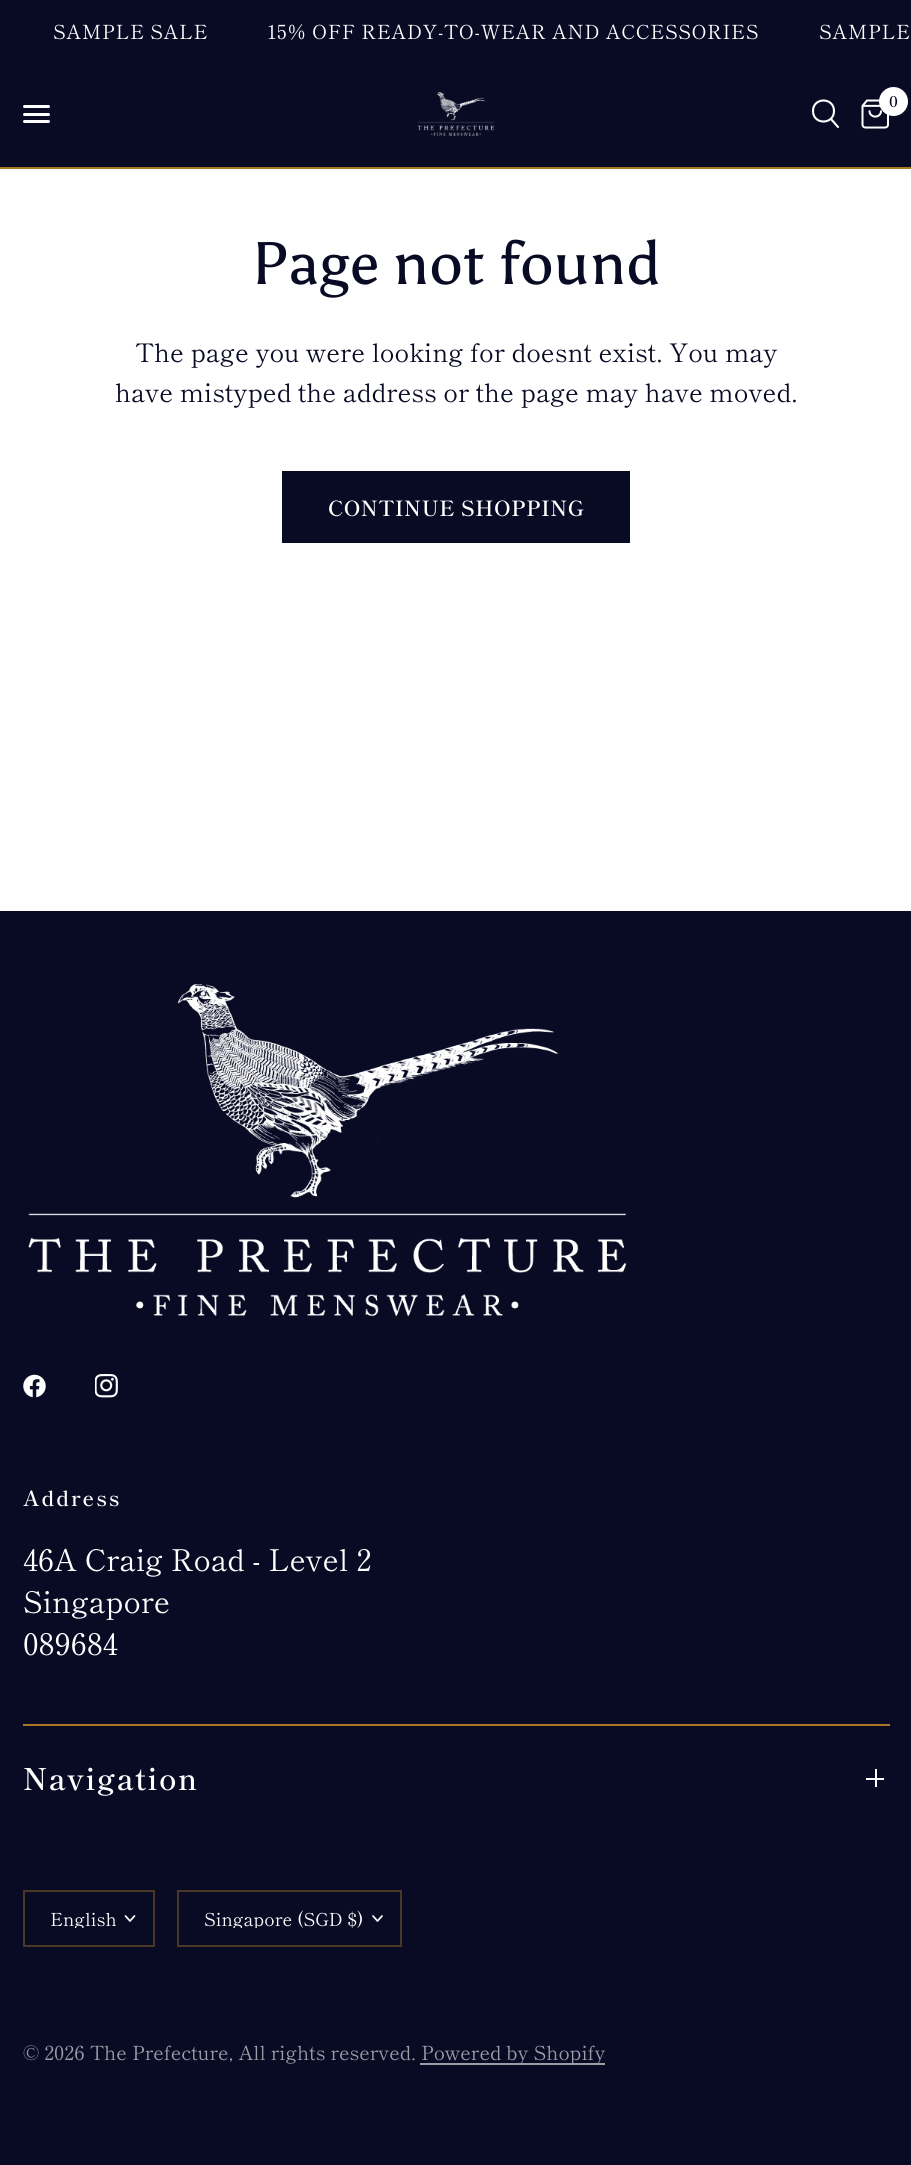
import math
import cairocffi as cairo

surface = cairo.ImageSurface(cairo.FORMAT_RGB24, 911, 2165)
ctx = cairo.Context(surface)
options = cairo.FontOptions()
options.set_hint_metrics(cairo.HINT_METRICS_OFF)
options.set_hint_style(cairo.HINT_STYLE_NONE)
ctx.set_font_options(options)
ctx.set_miter_limit(4)


def rgb(r, g, b):
    ctx.set_source_rgb(r / 255, g / 255, b / 255)


def face(family, size, italic, bold):
    ctx.select_font_face(family, cairo.FONT_SLANT_ITALIC if italic else cairo.FONT_SLANT_NORMAL, cairo.FONT_WEIGHT_BOLD if bold else cairo.FONT_WEIGHT_NORMAL)
    ctx.set_font_size(size)


def label(x, y, s):
    ctx.move_to(x, y)
    ctx.show_text(s)


def tracked(x, y, s, letter, word):
    ctx.move_to(x, y)
    for ch in s:
        ctx.show_text(ch)
        ctx.rel_move_to(letter + word * (ch == ' '), 0)


def rect(x, y, w, h):
    ctx.rectangle(x, y, w, h)
    ctx.fill()


def rrect(x, y, w, h, r):
    ctx.new_sub_path()
    for i, (u, v) in enumerate([(x + w - r, y + h - r), (x + r, y + h - r), (x + r, y + r), (x + w - r, y + r)]):
        ctx.arc(u, v, r, i * math.pi / 2, (i + 1) * math.pi / 2)
    ctx.close_path()


def image(path, x, y, w, h):
    ctx.save()
    ctx.set_source_surface(cairo.ImageSurface.create_from_png(path), x, y)
    ctx.rectangle(x, y, w, h)
    ctx.fill()
    ctx.restore()


rgb(255, 255, 255)
ctx.paint()
rgb(9, 11, 37)
rect(0, 0, 911, 167)
face('Shippori Mincho', 19.5, 0, 0)
rgb(255, 255, 255)
tracked(53, 39, 'SAMPLE SALE', 0.6, 0)
tracked(267, 39, '15% OFF READY-TO-WEAR AND ACCESSORIES', 0.6, 0)
tracked(819, 39, 'SAMPLE', 0.6, 0)
rgb(171, 120, 40)
rect(0, 167, 911, 2)
image('image0.png', 417, 92, 78, 44)
ctx.new_path()
ctx.move_to(831, 119)
ctx.line_to(838, 127)
ctx.move_to(834, 111)
ctx.curve_to(834, 125, 813, 125, 813, 111)
ctx.curve_to(813, 97, 834, 97, 834, 111)
ctx.close_path()
rgb(255, 255, 255)
ctx.set_line_width(2.1)
ctx.set_line_cap(cairo.LINE_CAP_ROUND)
ctx.set_line_join(cairo.LINE_JOIN_ROUND)
ctx.stroke()
image('image1.png', 861, 99, 28, 30)
ctx.arc(893.5, 101.5, 14.5, 0, 2 * math.pi)
ctx.fill()
face('Shippori Mincho SemiBold', 15, 0, 0)
rgb(9, 11, 37)
label(889, 107, '0')
rgb(255, 255, 255)
rrect(23, 105, 27, 3, 1.5)
ctx.fill()
rrect(23, 113, 27, 3, 1.5)
ctx.fill()
rrect(23, 120, 27, 3, 1.5)
ctx.fill()
face('Asul', 60, 0, 0)
rgb(9, 11, 37)
label(251, 284, 'Page not found')
face('Shippori Mincho', 25.5, 0, 0)
label(135, 362, 'The page you were looking for doesnt exist. You may')
label(115, 402, 'have mistyped the address or the page may have moved.')
rect(282, 471, 348, 72)
face('Shippori Mincho SemiBold', 21, 0, 0)
rgb(255, 255, 255)
tracked(328, 516, 'CONTINUE SHOPPING', 0.4, 0)
rgb(9, 11, 37)
rect(0, 911, 911, 1254)
image('image2.png', 28, 984, 599, 333)
image('image3.png', 23, 1374, 23, 24)
image('image4.png', 95, 1374, 23, 24)
rgb(255, 255, 255)
tracked(23, 1506, 'Address', 2, 0)
face('Shippori Mincho', 30, 0, 0)
label(23, 1571, '46A Craig Road - Level 2')
label(23, 1613, 'Singapore')
label(23, 1655, '089684')
rgb(171, 120, 40)
rect(23, 1724, 867, 2)
face('Shippori Mincho SemiBold', 30, 0, 0)
rgb(255, 255, 255)
tracked(23, 1790, 'Navigation', 1.5, 0)
rect(875, 1769, 2, 18)
rect(866, 1778, 18, 2)
ctx.rectangle(24, 1891, 130, 55)
rgb(74, 55, 38)
ctx.set_line_width(2)
ctx.set_line_cap(cairo.LINE_CAP_BUTT)
ctx.set_line_join(cairo.LINE_JOIN_MITER)
ctx.stroke()
ctx.save()
ctx.rectangle(50, 1910, 67, 18)
ctx.clip()
face('Shippori Mincho', 18, 0, 0)
rgb(255, 255, 255)
label(50, 1926, 'English')
ctx.restore()
ctx.new_path()
ctx.move_to(134.5, 1916)
ctx.line_to(130, 1921)
ctx.line_to(125.5, 1916)
rgb(255, 255, 255)
ctx.set_line_width(1.7)
ctx.set_line_cap(cairo.LINE_CAP_ROUND)
ctx.set_line_join(cairo.LINE_JOIN_ROUND)
ctx.stroke()
ctx.rectangle(178, 1891, 223, 55)
rgb(74, 55, 38)
ctx.set_line_width(2)
ctx.set_line_cap(cairo.LINE_CAP_BUTT)
ctx.set_line_join(cairo.LINE_JOIN_MITER)
ctx.stroke()
ctx.save()
ctx.rectangle(204, 1910, 161, 18)
ctx.clip()
face('Shippori Mincho', 18, 0, 0)
rgb(255, 255, 255)
label(204, 1926, 'Singapore (SGD $)')
ctx.restore()
ctx.new_path()
ctx.move_to(382, 1916)
ctx.line_to(377.5, 1921)
ctx.line_to(373, 1916)
rgb(255, 255, 255)
ctx.set_line_width(1.7)
ctx.set_line_cap(cairo.LINE_CAP_ROUND)
ctx.set_line_join(cairo.LINE_JOIN_ROUND)
ctx.stroke()
face('Shippori Mincho', 19.5, 0, 0)
rgb(157, 157, 168)
label(23, 2060, '© 2026 The Prefecture, All rights reserved.')
rect(420, 2063, 185, 2)
label(421, 2060, 'Powered by Shopify')
surface.write_to_png('render.png')
